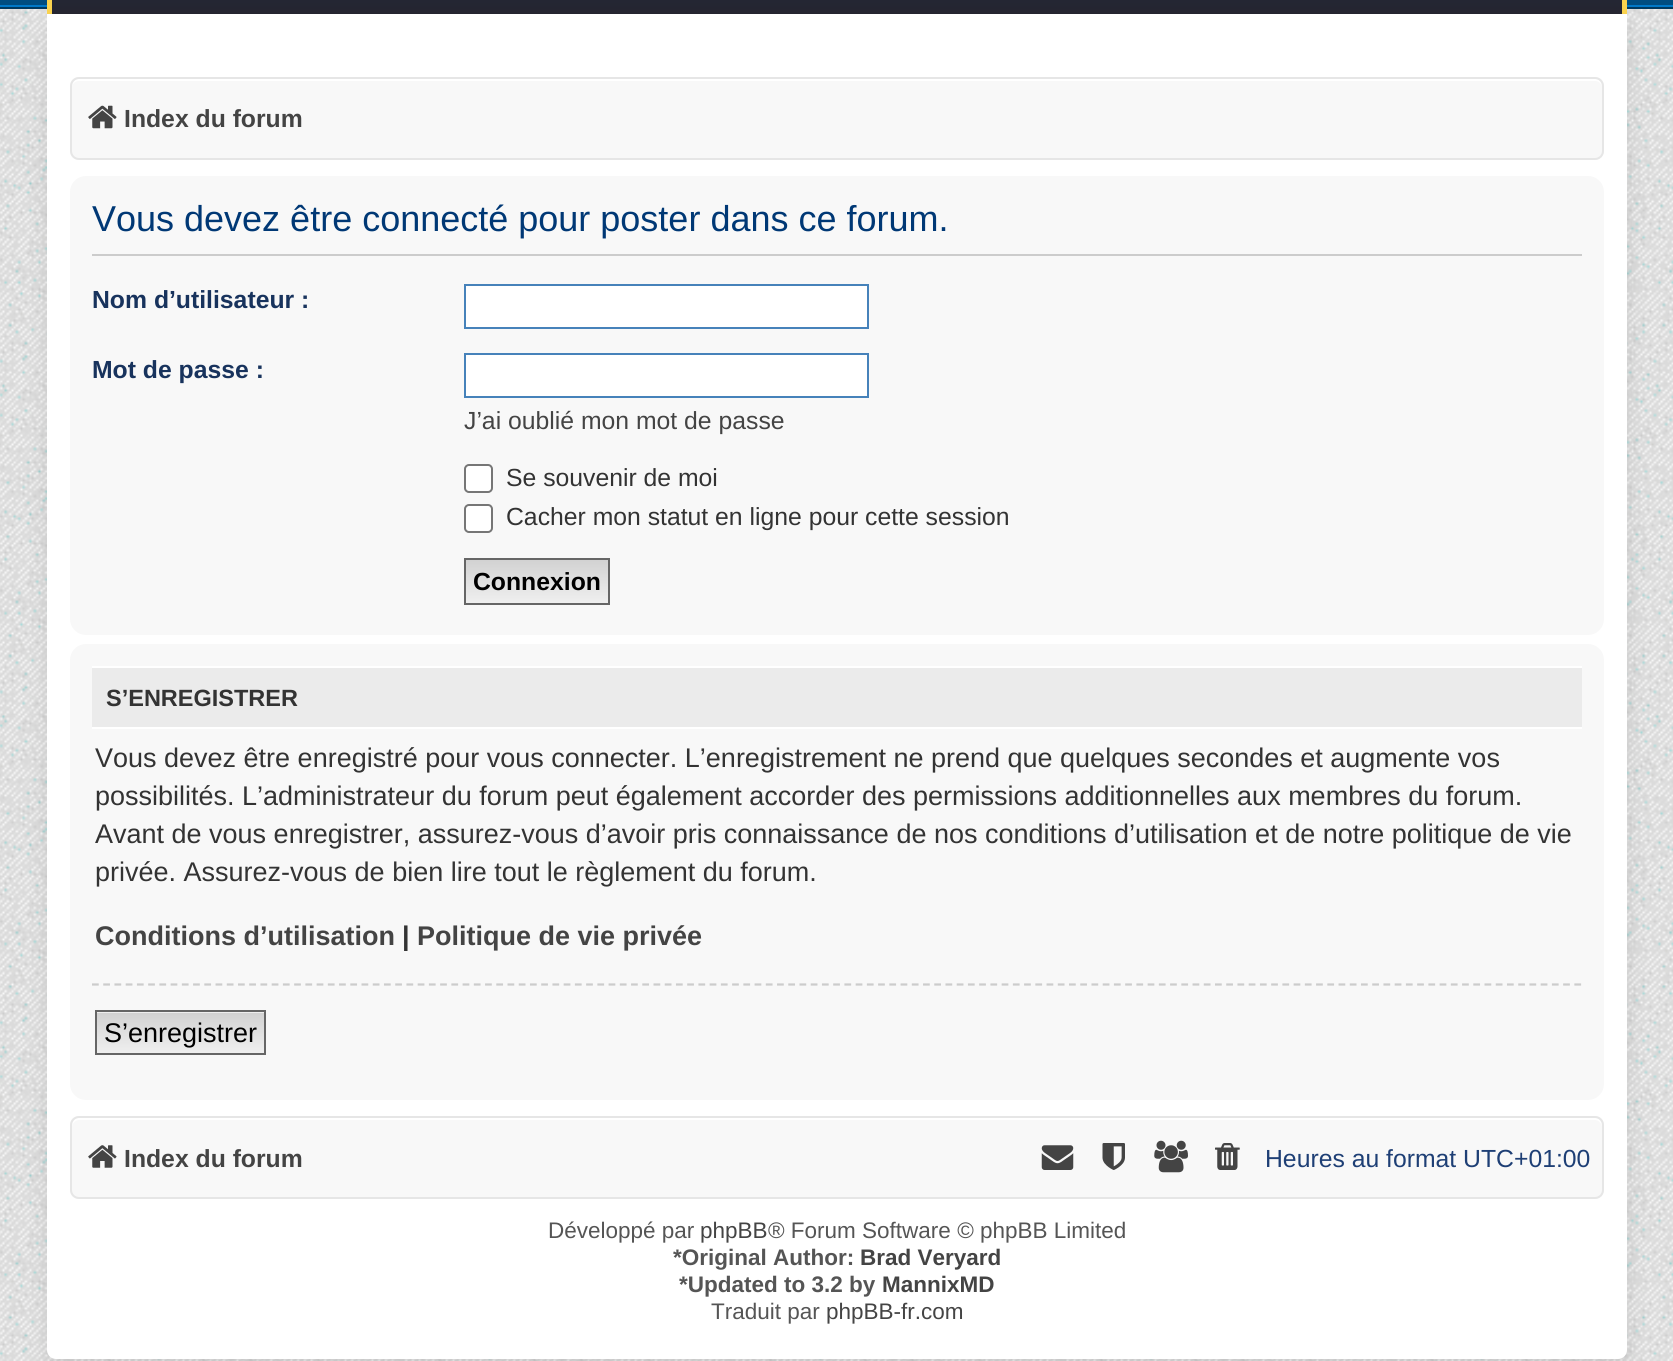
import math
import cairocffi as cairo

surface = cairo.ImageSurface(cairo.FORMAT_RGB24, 1673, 1361)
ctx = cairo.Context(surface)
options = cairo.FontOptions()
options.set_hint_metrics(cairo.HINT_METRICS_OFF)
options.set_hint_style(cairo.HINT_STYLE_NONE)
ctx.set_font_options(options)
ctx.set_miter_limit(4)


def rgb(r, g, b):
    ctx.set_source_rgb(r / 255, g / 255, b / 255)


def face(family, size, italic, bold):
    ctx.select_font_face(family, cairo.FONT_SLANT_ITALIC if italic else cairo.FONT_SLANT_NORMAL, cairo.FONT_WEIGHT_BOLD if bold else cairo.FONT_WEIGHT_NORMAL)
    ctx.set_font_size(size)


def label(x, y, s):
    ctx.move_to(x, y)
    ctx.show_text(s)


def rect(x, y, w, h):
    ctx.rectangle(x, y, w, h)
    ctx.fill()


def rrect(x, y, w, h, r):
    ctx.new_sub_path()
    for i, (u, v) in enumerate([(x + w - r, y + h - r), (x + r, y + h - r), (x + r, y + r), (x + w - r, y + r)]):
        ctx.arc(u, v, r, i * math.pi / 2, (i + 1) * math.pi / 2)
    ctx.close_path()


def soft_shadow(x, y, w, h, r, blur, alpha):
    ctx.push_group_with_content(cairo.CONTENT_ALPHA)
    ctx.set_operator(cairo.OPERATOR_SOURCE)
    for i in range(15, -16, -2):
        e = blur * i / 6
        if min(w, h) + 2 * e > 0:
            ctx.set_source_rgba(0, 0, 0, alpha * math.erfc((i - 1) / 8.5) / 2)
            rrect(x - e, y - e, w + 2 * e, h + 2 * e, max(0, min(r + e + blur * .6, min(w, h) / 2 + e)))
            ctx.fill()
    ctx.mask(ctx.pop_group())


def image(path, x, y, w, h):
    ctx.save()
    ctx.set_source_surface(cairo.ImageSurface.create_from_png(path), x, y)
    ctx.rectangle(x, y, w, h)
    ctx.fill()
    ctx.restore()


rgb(255, 255, 255)
ctx.paint()
image('image0.png', 0, 9, 1673, 1352)
gradient = cairo.LinearGradient(837, -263, 837, 6.8)
gradient.add_color_stop_rgba(0, 0, 0.357, 0.588, 1)
gradient.add_color_stop_rgba(1, 0, 0.302, 0.502, 1)
ctx.set_source(gradient)
rect(0, 0, 1673, 5)
rgb(0, 120, 199)
rect(0, 5, 1673, 2)
rgb(0, 57, 95)
rect(0, 7, 1673, 2)
gradient = cairo.LinearGradient(837, -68, 837, 14)
gradient.add_color_stop_rgba(0, 0.114, 0.165, 0.263, 1)
gradient.add_color_stop_rgba(1, 0.145, 0.145, 0.188, 1)
ctx.set_source(gradient)
rect(52, 0, 1570, 14)
rgb(250, 211, 78)
ctx.set_fill_rule(cairo.FILL_RULE_EVEN_ODD)
ctx.new_path()
ctx.move_to(56, -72)
ctx.line_to(1618, -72)
ctx.curve_to(1623, -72, 1627, -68, 1627, -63)
ctx.line_to(1627, 14)
ctx.line_to(47, 14)
ctx.line_to(47, -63)
ctx.curve_to(47, -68, 51, -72, 56, -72)
ctx.close_path()
ctx.move_to(56, -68)
ctx.line_to(1618, -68)
ctx.curve_to(1620, -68, 1622, -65, 1622, -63)
ctx.line_to(1622, 14)
ctx.line_to(52, 14)
ctx.line_to(52, -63)
ctx.curve_to(52, -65, 54, -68, 56, -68)
ctx.close_path()
ctx.fill()
rgb(0, 0, 0)
soft_shadow(47, 25, 1580, 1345, 9, 10, 0.1)
rgb(255, 255, 255)
ctx.new_path()
ctx.move_to(47, 14)
ctx.line_to(1627, 14)
ctx.line_to(1627, 1350)
ctx.curve_to(1627, 1355, 1623, 1359, 1618, 1359)
ctx.line_to(56, 1359)
ctx.curve_to(51, 1359, 47, 1355, 47, 1350)
ctx.close_path()
ctx.fill()
rgb(248, 248, 248)
rrect(70, 77, 1534, 83, 9)
ctx.fill()
rgb(255, 255, 255)
ctx.set_fill_rule(cairo.FILL_RULE_WINDING)
ctx.new_path()
ctx.move_to(79, 81)
ctx.line_to(1595, 81)
ctx.curve_to(1599, 81, 1602, 84, 1602, 88)
ctx.curve_to(1602, 84, 1600, 79, 1595, 79)
ctx.line_to(79, 79)
ctx.curve_to(74, 79, 72, 84, 72, 88)
ctx.curve_to(72, 84, 75, 81, 79, 81)
ctx.close_path()
ctx.fill()
rrect(71, 78, 1532, 81, 8)
rgb(230, 230, 230)
ctx.stroke()
image('image1.png', 88, 105, 29, 24)
face('Liberation Sans', 24.75, 0, 1)
rgb(68, 68, 68)
label(124, 127, 'Index du forum')
rgb(248, 248, 248)
rrect(70, 176, 1534, 459, 16)
ctx.fill()
rgb(204, 204, 204)
rect(92, 254, 1490, 2)
face('Liberation Sans', 36, 0, 0)
rgb(0, 56, 117)
label(92, 231, 'Vous devez être connecté pour poster dans ce forum.')
face('Liberation Sans', 24.75, 0, 1)
rgb(24, 51, 93)
label(92, 308, 'Nom d’utilisateur :')
rgb(255, 255, 255)
ctx.rectangle(465, 285, 403, 43)
ctx.fill_preserve()
rgb(70, 130, 186)
ctx.stroke()
rgb(24, 51, 93)
label(92, 378, 'Mot de passe :')
rgb(255, 255, 255)
ctx.rectangle(465, 354, 403, 43)
ctx.fill_preserve()
rgb(70, 130, 186)
ctx.stroke()
face('Liberation Sans', 24.75, 0, 0)
rgb(68, 68, 68)
label(464, 429, 'J’ai oublié mon mot de passe')
rgb(255, 255, 255)
rrect(465, 465, 27, 27, 4)
ctx.fill_preserve()
rgb(118, 118, 118)
ctx.stroke()
rgb(51, 51, 51)
label(506, 486, 'Se souvenir de moi')
rgb(255, 255, 255)
rrect(465, 505, 27, 27, 4)
ctx.fill_preserve()
rgb(118, 118, 118)
ctx.stroke()
rgb(51, 51, 51)
label(506, 525, 'Cacher mon statut en ligne pour cette session')
gradient = cairo.LinearGradient(537, 560, 537, 603)
gradient.add_color_stop_rgba(0, 0.824, 0.824, 0.824, 1)
gradient.add_color_stop_rgba(1, 0.937, 0.937, 0.937, 1)
ctx.set_source(gradient)
rect(466, 560, 142, 43)
ctx.rectangle(465, 559, 144, 45)
rgb(102, 102, 102)
ctx.stroke()
face('Liberation Sans', 24.75, 0, 1)
rgb(0, 0, 0)
label(473, 590, 'Connexion')
rgb(248, 248, 248)
rrect(70, 644, 1534, 456, 16)
ctx.fill()
rgb(235, 235, 235)
rect(92, 668, 1490, 59)
rgb(255, 255, 255)
rect(92, 666, 1490, 2)
rect(92, 727, 1490, 2)
face('Liberation Sans', 23.5, 0, 1)
rgb(51, 51, 51)
label(106, 706, 'S’ENREGISTRER')
face('Liberation Sans', 27, 0, 0)
label(95, 767, 'Vous devez être enregistré pour vous connecter. L’enregistrement ne prend que quelques secondes et augmente vos')
label(95, 805, 'possibilités. L’administrateur du forum peut également accorder des permissions additionnelles aux membres du forum.')
label(95, 843, 'Avant de vous enregistrer, assurez-vous d’avoir pris connaissance de nos conditions d’utilisation et de notre politique de vie')
label(95, 881, 'privée. Assurez-vous de bien lire tout le règlement du forum.')
face('Liberation Sans', 27, 0, 1)
rgb(68, 68, 68)
label(95, 945, 'Conditions d’utilisation')
rgb(51, 51, 51)
label(402, 945, '|')
rgb(68, 68, 68)
label(417, 945, 'Politique de vie privée')
ctx.new_path()
ctx.move_to(92, 984.5)
ctx.line_to(1582, 984.5)
rgb(204, 204, 204)
ctx.set_line_width(2.2)
ctx.set_dash([6.75, 4.48])
ctx.stroke()
rgb(239, 239, 239)
rect(97, 1012, 167, 1)
gradient = cairo.LinearGradient(180, 1013, 180, 1053)
gradient.add_color_stop_rgba(0, 0.824, 0.824, 0.824, 1)
gradient.add_color_stop_rgba(1, 0.937, 0.937, 0.937, 1)
ctx.set_source(gradient)
rect(97, 1013, 167, 40)
ctx.rectangle(96, 1011, 169, 43)
rgb(102, 102, 102)
ctx.set_line_width(2)
ctx.set_dash([])
ctx.stroke()
face('Liberation Sans', 27, 0, 0)
rgb(0, 0, 0)
label(104, 1042, 'S’enregistrer')
rgb(248, 248, 248)
rrect(70, 1116, 1534, 83, 9)
ctx.fill()
rgb(255, 255, 255)
ctx.new_path()
ctx.move_to(79, 1120)
ctx.line_to(1595, 1120)
ctx.curve_to(1599, 1120, 1602, 1124, 1602, 1127)
ctx.curve_to(1602, 1123, 1600, 1118, 1595, 1118)
ctx.line_to(79, 1118)
ctx.curve_to(74, 1118, 72, 1123, 72, 1127)
ctx.curve_to(72, 1124, 75, 1120, 79, 1120)
ctx.close_path()
ctx.fill()
rrect(71, 1117, 1532, 81, 8)
rgb(230, 230, 230)
ctx.stroke()
image('image2.png', 88, 1145, 29, 23)
face('Liberation Sans', 24.75, 0, 1)
rgb(68, 68, 68)
label(124, 1167, 'Index du forum')
image('image3.png', 1041, 1145, 33, 25)
image('image4.png', 1102, 1143, 23, 27)
image('image5.png', 1154, 1140, 34, 33)
image('image6.png', 1215, 1143, 25, 27)
face('Liberation Sans', 24.75, 0, 0)
rgb(30, 63, 117)
label(1265, 1167, 'Heures au format UTC+01:00')
face('Liberation Sans', 22.5, 0, 0)
rgb(85, 85, 85)
label(548, 1238, 'Développé par')
rgb(68, 68, 68)
label(700, 1238, 'phpBB')
rgb(85, 85, 85)
label(768, 1238, '® Forum Software © phpBB Limited')
face('Liberation Sans', 22.5, 0, 1)
label(673, 1265, '*Original Author:')
rgb(68, 68, 68)
label(860, 1265, 'Brad Veryard')
rgb(85, 85, 85)
label(679, 1292, '*Updated to 3.2 by')
rgb(68, 68, 68)
label(882, 1292, 'MannixMD')
face('Liberation Sans', 22.5, 0, 0)
rgb(85, 85, 85)
label(711, 1319, 'Traduit par')
rgb(68, 68, 68)
label(826, 1319, 'phpBB-fr.com')
surface.write_to_png('render.png')
